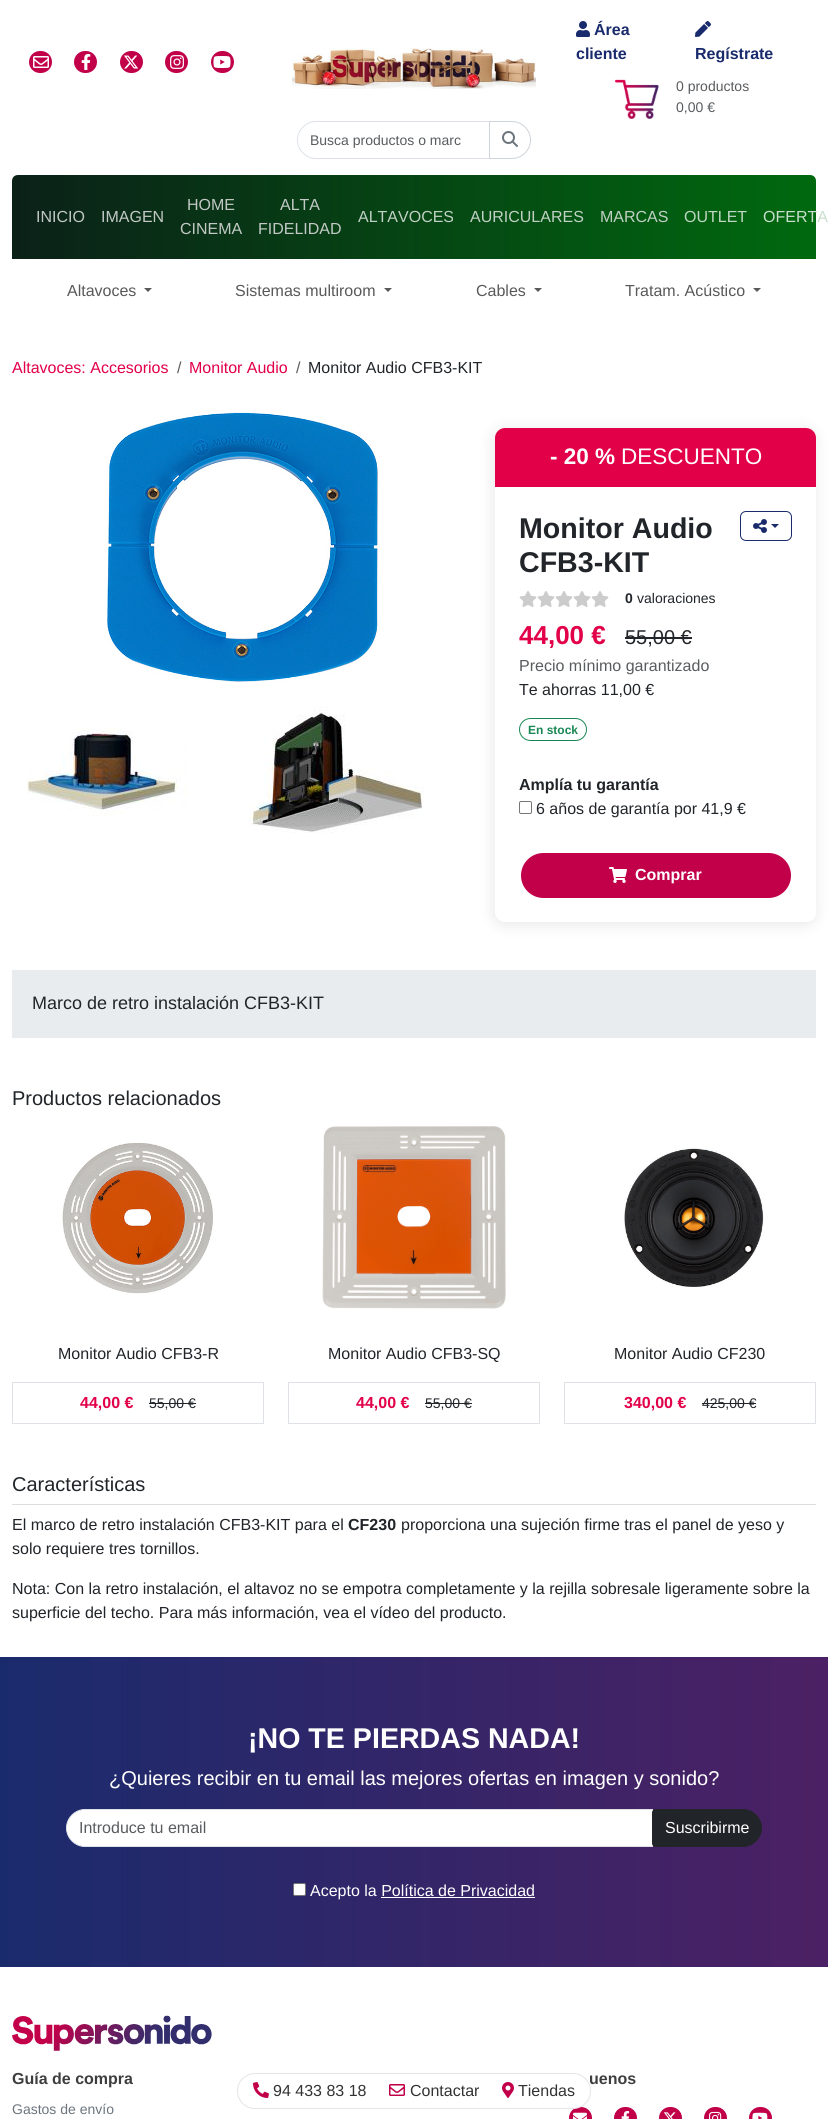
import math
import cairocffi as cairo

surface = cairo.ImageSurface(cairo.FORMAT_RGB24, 828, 2119)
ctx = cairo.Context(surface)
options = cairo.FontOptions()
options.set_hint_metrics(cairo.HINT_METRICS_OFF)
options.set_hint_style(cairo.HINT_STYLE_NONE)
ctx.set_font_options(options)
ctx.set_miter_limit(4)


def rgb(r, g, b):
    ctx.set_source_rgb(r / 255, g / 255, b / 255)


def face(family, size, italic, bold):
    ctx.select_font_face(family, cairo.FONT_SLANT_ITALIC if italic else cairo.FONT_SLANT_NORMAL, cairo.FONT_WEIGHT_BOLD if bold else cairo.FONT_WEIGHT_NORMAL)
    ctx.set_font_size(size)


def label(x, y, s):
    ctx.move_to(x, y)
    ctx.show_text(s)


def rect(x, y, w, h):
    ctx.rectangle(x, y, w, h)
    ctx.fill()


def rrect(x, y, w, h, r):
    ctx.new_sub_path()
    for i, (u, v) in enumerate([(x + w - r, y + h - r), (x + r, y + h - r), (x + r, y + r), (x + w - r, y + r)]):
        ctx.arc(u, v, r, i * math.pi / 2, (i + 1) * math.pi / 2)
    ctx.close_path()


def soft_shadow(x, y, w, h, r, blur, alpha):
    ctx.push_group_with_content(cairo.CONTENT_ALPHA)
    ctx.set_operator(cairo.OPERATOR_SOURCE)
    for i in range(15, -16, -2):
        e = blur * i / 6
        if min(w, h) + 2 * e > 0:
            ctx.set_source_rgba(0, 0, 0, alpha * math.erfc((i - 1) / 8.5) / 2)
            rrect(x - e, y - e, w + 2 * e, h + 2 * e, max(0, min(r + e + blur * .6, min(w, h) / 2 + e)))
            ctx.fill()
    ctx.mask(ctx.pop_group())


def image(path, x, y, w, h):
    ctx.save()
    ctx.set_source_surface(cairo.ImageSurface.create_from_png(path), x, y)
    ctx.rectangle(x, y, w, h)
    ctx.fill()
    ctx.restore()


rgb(255, 255, 255)
ctx.paint()
rgb(193, 0, 73)
rrect(29, 51, 23, 22, 11)
ctx.fill()
image('image0.png', 33, 56, 16, 12)
rrect(74, 51, 23, 22, 11)
ctx.fill()
image('image1.png', 81, 54, 10, 16)
rrect(120, 51, 23, 22, 11)
ctx.fill()
image('image2.png', 124, 55, 15, 14)
rrect(165, 51, 23, 22, 11)
ctx.fill()
image('image3.png', 170, 55, 14, 14)
rrect(211, 51, 23, 22, 11)
ctx.fill()
image('image4.png', 213, 56, 18, 12)
image('image5.png', 292, 48, 244, 41)
image('image6.png', 576, 21, 14, 16)
face('Liberation Sans', 16, 0, 1)
rgb(26, 43, 109)
label(594, 35, 'Área')
label(576, 59, 'cliente')
image('image7.png', 695, 21, 16, 16)
label(695, 59, 'Regístrate')
image('image8.png', 615, 79, 44, 40)
face('Liberation Sans', 14, 0, 0)
rgb(89, 92, 95)
label(676, 91, '0 productos')
label(676, 112, '0,00 €')
ctx.new_path()
ctx.move_to(316, 121.5)
ctx.line_to(489.5, 121.5)
ctx.line_to(489.5, 158.5)
ctx.line_to(316, 158.5)
ctx.curve_to(306, 158.5, 297.5, 150, 297.5, 140)
ctx.curve_to(297.5, 130, 306, 121.5, 316, 121.5)
ctx.close_path()
rgb(222, 226, 230)
ctx.set_line_width(1)
ctx.stroke()
rgb(89, 92, 95)
label(310, 145, 'Busca productos o marc')
rgb(255, 255, 255)
ctx.new_path()
ctx.move_to(489.5, 121.5)
ctx.line_to(512, 121.5)
ctx.curve_to(522, 121.5, 530.5, 130, 530.5, 140)
ctx.curve_to(530.5, 150, 522, 158.5, 512, 158.5)
ctx.line_to(489.5, 158.5)
ctx.close_path()
ctx.fill_preserve()
rgb(206, 212, 218)
ctx.stroke()
image('image9.png', 502, 131, 16, 16)
gradient = cairo.LinearGradient(12, 217, 816, 217)
gradient.add_color_stop_rgba(0, 0.043, 0.129, 0.094, 1)
gradient.add_color_stop_rgba(1, 0, 0.412, 0.059, 1)
ctx.set_source(gradient)
ctx.new_path()
ctx.move_to(18, 175)
ctx.line_to(810, 175)
ctx.curve_to(813.5, 175, 816, 177.5, 816, 181)
ctx.line_to(816, 259)
ctx.line_to(12, 259)
ctx.line_to(12, 181)
ctx.curve_to(12, 177.5, 14.5, 175, 18, 175)
ctx.close_path()
ctx.fill()
face('Liberation Sans', 16, 0, 0)
rgb(194, 201, 197)
label(36, 222, 'INICIO')
label(101, 222, 'IMAGEN')
label(187, 210, 'HOME')
label(180, 234, 'CINEMA')
label(280, 210, 'ALTA')
label(258, 234, 'FIDELIDAD')
rgb(193, 208, 196)
label(358, 222, 'ALTAVOCES')
label(470, 222, 'AURICULARES')
label(600, 222, 'MARCAS')
rgb(192, 215, 195)
label(684, 222, 'OUTLET')
rgb(202, 223, 205)
label(763, 222, 'OFERTA')
rgb(89, 89, 89)
label(67, 296, 'Altavoces')
ctx.new_path()
ctx.move_to(144, 288)
ctx.line_to(152, 288)
ctx.line_to(148, 292)
ctx.close_path()
ctx.fill()
label(235, 296, 'Sistemas multiroom')
ctx.new_path()
ctx.move_to(384, 288)
ctx.line_to(392, 288)
ctx.line_to(388, 292)
ctx.close_path()
ctx.fill()
label(476, 296, 'Cables')
ctx.new_path()
ctx.move_to(534, 288)
ctx.line_to(542, 288)
ctx.line_to(538, 292)
ctx.close_path()
ctx.fill()
label(625, 296, 'Tratam. Acústico')
ctx.new_path()
ctx.move_to(753, 288)
ctx.line_to(761, 288)
ctx.line_to(757, 292)
ctx.close_path()
ctx.fill()
rgb(226, 0, 73)
label(12, 373, 'Altavoces: Accesorios')
rgb(89, 92, 95)
label(177, 373, '/')
rgb(226, 0, 73)
label(189, 373, 'Monitor Audio')
rgb(89, 92, 95)
label(296, 373, '/')
rgb(33, 37, 41)
label(308, 373, 'Monitor Audio CFB3-KIT')
image('image10.png', 107, 412, 272, 270)
image('image11.png', 27, 728, 160, 89)
image('image12.png', 249, 706, 175, 127)
ctx.save()
ctx.set_fill_rule(cairo.FILL_RULE_EVEN_ODD)
ctx.new_path()
ctx.move_to(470, 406)
ctx.line_to(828, 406)
ctx.line_to(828, 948)
ctx.line_to(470, 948)
ctx.close_path()
ctx.move_to(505, 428)
ctx.line_to(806, 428)
ctx.curve_to(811.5, 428, 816, 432.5, 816, 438)
ctx.line_to(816, 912)
ctx.curve_to(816, 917.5, 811.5, 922, 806, 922)
ctx.line_to(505, 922)
ctx.curve_to(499.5, 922, 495, 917.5, 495, 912)
ctx.line_to(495, 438)
ctx.curve_to(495, 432.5, 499.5, 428, 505, 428)
ctx.close_path()
ctx.clip()
rgb(56, 56, 56)
soft_shadow(494, 430, 321, 494, 10, 7.5, 0.13)
ctx.restore()
rgb(226, 0, 73)
ctx.new_path()
ctx.move_to(505, 428)
ctx.line_to(806, 428)
ctx.curve_to(811.5, 428, 816, 432.5, 816, 438)
ctx.line_to(816, 487)
ctx.line_to(495, 487)
ctx.line_to(495, 438)
ctx.curve_to(495, 432.5, 499.5, 428, 505, 428)
ctx.close_path()
ctx.fill()
face('Liberation Sans', 22.5, 0, 1)
rgb(255, 255, 255)
label(550, 464, '- 20 %')
face('Liberation Sans', 22.5, 0, 0)
label(621, 464, 'DESCUENTO')
face('Liberation Sans', 28.6, 0, 1)
rgb(33, 37, 41)
label(519, 538, 'Monitor Audio')
label(519, 572, 'CFB3-KIT')
rrect(740.5, 511.5, 51, 29, 5.5)
rgb(26, 43, 109)
ctx.stroke()
image('image13.png', 753, 519, 14, 14)
ctx.new_path()
ctx.move_to(771, 524)
ctx.line_to(779, 524)
ctx.line_to(775, 528)
ctx.close_path()
ctx.fill()
image('image14.png', 519, 591, 18, 16)
image('image14.png', 537, 591, 18, 16)
image('image14.png', 555, 591, 18, 16)
image('image14.png', 573, 591, 18, 16)
image('image14.png', 591, 591, 18, 16)
face('Liberation Sans', 14, 0, 1)
rgb(33, 37, 41)
label(625, 603, '0')
face('Liberation Sans', 14, 0, 0)
label(637, 603, 'valoraciones')
face('Liberation Sans', 26, 0, 1)
rgb(226, 0, 73)
label(519, 644, '44,00 €')
face('Liberation Sans', 20, 0, 0)
rgb(33, 37, 41)
label(625, 644, '55,00 €')
rect(625, 637, 67, 2)
face('Liberation Sans', 16, 0, 0)
rgb(89, 92, 95)
label(519, 671, 'Precio mínimo garantizado')
rgb(33, 37, 41)
label(519, 695, 'Te ahorras 11,00 €')
rrect(519.5, 718.5, 67, 22, 11)
rgb(25, 135, 84)
ctx.stroke()
face('Liberation Sans', 12, 0, 1)
label(528, 734, 'En stock')
face('Liberation Sans', 16, 0, 1)
rgb(33, 37, 41)
label(519, 790, 'Amplía tu garantía')
rrect(519.5, 801.5, 12, 12, 1.5)
rgb(118, 118, 118)
ctx.stroke()
face('Liberation Sans', 16, 0, 0)
rgb(33, 37, 41)
label(536, 814, '6 años de garantía por 41,9 €')
rgb(193, 0, 73)
rrect(521, 853, 270, 45, 22.5)
ctx.fill()
image('image15.png', 609, 867, 18, 16)
face('Liberation Sans', 16, 0, 1)
rgb(255, 255, 255)
label(635, 880, 'Comprar')
rgb(233, 236, 239)
rect(12, 970, 804, 68)
face('Liberation Sans', 18, 0, 0)
rgb(33, 37, 41)
label(32, 1009, 'Marco de retro instalación CFB3-KIT')
face('Liberation Sans', 20, 0, 0)
label(12, 1105, 'Productos relacionados')
image('image16.png', 62, 1143, 151, 151)
face('Liberation Sans', 16, 0, 0)
label(58, 1359, 'Monitor Audio CFB3-R')
ctx.rectangle(12.5, 1382.5, 251, 41)
rgb(222, 226, 230)
ctx.stroke()
face('Liberation Sans', 16, 0, 1)
rgb(226, 0, 73)
label(80, 1408, '44,00 €')
face('Liberation Sans', 14, 0, 0)
rgb(33, 37, 41)
label(149, 1408, '55,00 €')
rect(149, 1403, 47, 1)
image('image17.png', 322, 1126, 184, 183)
face('Liberation Sans', 16, 0, 0)
label(328, 1359, 'Monitor Audio CFB3-SQ')
ctx.rectangle(288.5, 1382.5, 251, 41)
rgb(222, 226, 230)
ctx.stroke()
face('Liberation Sans', 16, 0, 1)
rgb(226, 0, 73)
label(356, 1408, '44,00 €')
face('Liberation Sans', 14, 0, 0)
rgb(33, 37, 41)
label(425, 1408, '55,00 €')
rect(425, 1403, 47, 1)
image('image18.png', 624, 1147, 140, 140)
face('Liberation Sans', 16, 0, 0)
label(614, 1359, 'Monitor Audio CF230')
ctx.rectangle(564.5, 1382.5, 251, 41)
rgb(222, 226, 230)
ctx.stroke()
face('Liberation Sans', 16, 0, 1)
rgb(226, 0, 73)
label(624, 1408, '340,00 €')
face('Liberation Sans', 14, 0, 0)
rgb(33, 37, 41)
label(702, 1408, '425,00 €')
rect(702, 1403, 54, 1)
rgb(221, 221, 221)
rect(12, 1504, 804, 1)
face('Liberation Sans', 20, 0, 0)
rgb(33, 37, 41)
label(12, 1491, 'Características')
face('Liberation Sans', 16, 0, 0)
label(12, 1530, 'El marco de retro instalación CFB3-KIT para el')
face('Liberation Sans', 16, 0, 1)
label(348, 1530, 'CF230')
face('Liberation Sans', 16, 0, 0)
label(401, 1530, 'proporciona una sujeción firme tras el panel de yeso y')
label(12, 1554, 'solo requiere tres tornillos.')
label(12, 1594, 'Nota: Con la retro instalación, el altavoz no se empotra completamente y la rejilla sobresale ligeramente sobre la')
label(12, 1618, 'superficie del techo. Para más información, vea el vídeo del producto.')
gradient = cairo.LinearGradient(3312, 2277, 0, 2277)
gradient.add_color_stop_rgba(0, 0.886, 0, 0.286, 1)
gradient.add_color_stop_rgba(1, 0.102, 0.169, 0.427, 1)
ctx.set_source(gradient)
rect(0, 1657, 828, 310)
face('Liberation Sans', 28.6, 0, 1)
rgb(255, 255, 255)
label(248, 1748, '¡NO TE PIERDAS NADA!')
face('Liberation Sans', 20, 0, 0)
label(109, 1785, '¿Quieres recibir en tu email las mejores ofertas en imagen y sonido?')
ctx.new_path()
ctx.move_to(85, 1809.5)
ctx.line_to(652.5, 1809.5)
ctx.line_to(652.5, 1846.5)
ctx.line_to(85, 1846.5)
ctx.curve_to(75, 1846.5, 66.5, 1838, 66.5, 1828)
ctx.curve_to(66.5, 1818, 75, 1809.5, 85, 1809.5)
ctx.close_path()
ctx.fill_preserve()
rgb(222, 226, 230)
ctx.stroke()
face('Liberation Sans', 16, 0, 0)
rgb(89, 92, 95)
label(79, 1833, 'Introduce tu email')
rgb(33, 37, 41)
ctx.new_path()
ctx.move_to(656, 1809.5)
ctx.line_to(743, 1809.5)
ctx.curve_to(753, 1809.5, 761.5, 1818, 761.5, 1828)
ctx.curve_to(761.5, 1838, 753, 1846.5, 743, 1846.5)
ctx.line_to(656, 1846.5)
ctx.curve_to(654, 1846.5, 652.5, 1845, 652.5, 1843)
ctx.line_to(652.5, 1813)
ctx.curve_to(652.5, 1811, 654, 1809.5, 656, 1809.5)
ctx.close_path()
ctx.fill_preserve()
ctx.stroke()
rgb(255, 255, 255)
label(665, 1833, 'Suscribirme')
rrect(293.5, 1883.5, 12, 12, 1.5)
ctx.fill_preserve()
rgb(118, 118, 118)
ctx.stroke()
rgb(255, 255, 255)
label(310, 1896, 'Acepto la Política de Privacidad')
rect(381, 1897, 154, 1)
image('image19.png', 12, 2015, 200, 36)
face('Liberation Sans', 16, 0, 1)
rgb(62, 62, 62)
label(12, 2084, 'Guía de compra')
face('Liberation Sans', 14, 0, 0)
rgb(108, 117, 125)
label(12, 2114, 'Gastos de envío')
face('Liberation Sans', 16, 0, 1)
rgb(62, 62, 62)
label(589, 2084, 'uenos')
rgb(193, 0, 73)
rrect(569, 2107, 23, 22, 11)
ctx.fill()
image('image20.png', 573, 2112, 14, 7)
rrect(614, 2107, 23, 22, 11)
ctx.fill()
image('image21.png', 621, 2111, 9, 8)
rrect(659, 2107, 23, 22, 11)
ctx.fill()
image('image22.png', 663, 2112, 13, 7)
rrect(704, 2107, 23, 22, 11)
ctx.fill()
image('image23.png', 709, 2111, 13, 8)
rrect(749, 2107, 23, 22, 11)
ctx.fill()
image('image24.png', 752, 2112, 16, 7)
rgb(255, 255, 255)
rrect(237.5, 2073.5, 353, 35, 17.5)
ctx.fill_preserve()
rgb(229, 229, 229)
ctx.stroke()
image('image25.png', 253, 2082, 16, 16)
face('Liberation Sans', 16, 0, 0)
rgb(51, 51, 51)
label(273, 2096, '94 433 83 18')
image('image26.png', 389, 2084, 16, 12)
label(410, 2096, 'Contactar')
image('image27.png', 502, 2082, 12, 16)
label(518, 2096, 'Tiendas')
surface.write_to_png('render.png')
